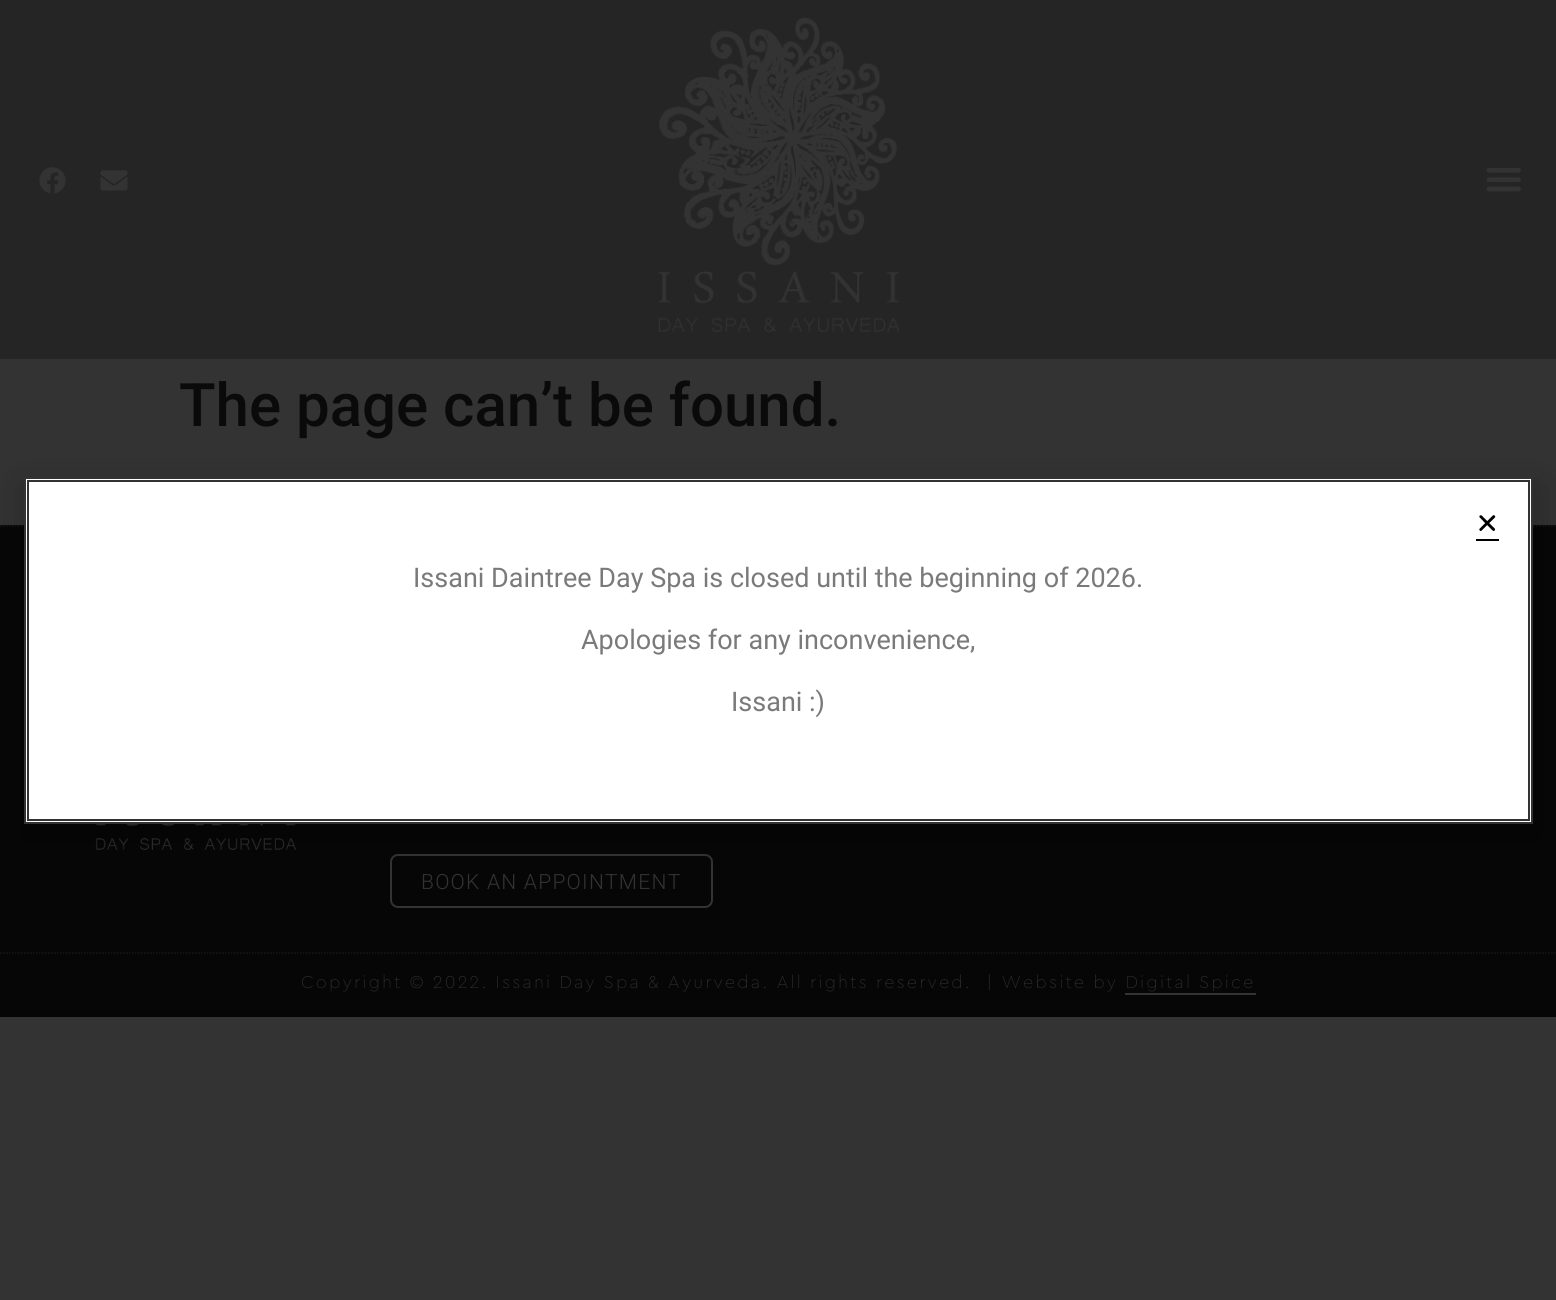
import math
import cairocffi as cairo

surface = cairo.ImageSurface(cairo.FORMAT_RGB24, 1556, 1300)
ctx = cairo.Context(surface)
options = cairo.FontOptions()
options.set_hint_metrics(cairo.HINT_METRICS_OFF)
options.set_hint_style(cairo.HINT_STYLE_NONE)
ctx.set_font_options(options)
ctx.set_miter_limit(4)


def rgb(r, g, b):
    ctx.set_source_rgb(r / 255, g / 255, b / 255)


def face(family, size, italic, bold):
    ctx.select_font_face(family, cairo.FONT_SLANT_ITALIC if italic else cairo.FONT_SLANT_NORMAL, cairo.FONT_WEIGHT_BOLD if bold else cairo.FONT_WEIGHT_NORMAL)
    ctx.set_font_size(size)


def label(x, y, s):
    ctx.move_to(x, y)
    ctx.show_text(s)


def tracked(x, y, s, letter, word):
    ctx.move_to(x, y)
    for ch in s:
        ctx.show_text(ch)
        ctx.rel_move_to(letter + word * (ch == ' '), 0)


def rect(x, y, w, h):
    ctx.rectangle(x, y, w, h)
    ctx.fill()


def rrect(x, y, w, h, r):
    ctx.new_sub_path()
    for i, (u, v) in enumerate([(x + w - r, y + h - r), (x + r, y + h - r), (x + r, y + r), (x + w - r, y + r)]):
        ctx.arc(u, v, r, i * math.pi / 2, (i + 1) * math.pi / 2)
    ctx.close_path()


def soft_shadow(x, y, w, h, r, blur, alpha):
    ctx.push_group_with_content(cairo.CONTENT_ALPHA)
    ctx.set_operator(cairo.OPERATOR_SOURCE)
    for i in range(15, -16, -2):
        e = blur * i / 6
        if min(w, h) + 2 * e > 0:
            ctx.set_source_rgba(0, 0, 0, alpha * math.erfc((i - 1) / 8.5) / 2)
            rrect(x - e, y - e, w + 2 * e, h + 2 * e, max(0, min(r + e + blur * .6, min(w, h) / 2 + e)))
            ctx.fill()
    ctx.mask(ctx.pop_group())


def image(path, x, y, w, h):
    ctx.save()
    ctx.set_source_surface(cairo.ImageSurface.create_from_png(path), x, y)
    ctx.rectangle(x, y, w, h)
    ctx.fill()
    ctx.restore()


rgb(51, 51, 51)
ctx.paint()
rgb(38, 37, 37)
rect(0, 0, 1556, 359)
image('image0.png', 39, 167, 27, 27)
image('image1.png', 100, 170, 28, 21)
image('image2.png', 658, 17, 242, 315)
image('image3.png', 1486, 167, 35, 25)
face('Roboto Medium', 60, 0, 0)
rgb(10, 10, 10)
label(179, 426, 'The page can’t be found.')
rgb(6, 6, 6)
rect(0, 525, 1556, 492)
ctx.new_path()
ctx.move_to(0, 526)
ctx.line_to(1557, 526)
rgb(24, 24, 24)
ctx.set_line_width(1.5)
ctx.set_dash([1.5, 1.5])
ctx.stroke()
image('image5.png', 95, 824, 202, 26)
rrect(391, 855, 321, 52, 7)
rgb(51, 51, 51)
ctx.set_line_width(2)
ctx.set_dash([])
ctx.stroke()
rgb(0, 0, 0)
soft_shadow(23, 485, 1518, 355, 0, 17, 0.2)
rgb(255, 255, 255)
ctx.rectangle(25, 478, 1507, 345)
ctx.fill_preserve()
rgb(51, 51, 51)
ctx.stroke()
ctx.rectangle(28, 481, 1501, 339)
ctx.stroke()
image('image4.png', 1479, 515, 17, 16)
rgb(0, 0, 0)
rect(1476, 539, 23, 2)
face('Roboto', 27, 0, 0)
rgb(122, 122, 122)
label(413, 587, 'Issani Daintree Day Spa is closed until the beginning of 2026.')
label(581, 649, 'Apologies for any inconvenience,')
label(731, 711, 'Issani :)')
ctx.new_path()
ctx.move_to(0, 953)
ctx.line_to(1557, 953)
rgb(24, 24, 24)
ctx.set_line_width(1.5)
ctx.set_dash([1.5, 1.5])
ctx.stroke()
face('Roboto Light', 21, 0, 0)
rgb(51, 51, 51)
tracked(421, 889, 'BOOK AN APPOINTMENT', 1.25, 0)
face('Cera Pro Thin', 18, 0, 0)
tracked(301, 988, 'Copyright © 2022. Issani Day Spa & Ayurveda. All rights reserved.  | Website by Digital Spice', 2.1, 0)
rect(1125, 993, 131, 2)
surface.write_to_png('render.png')
